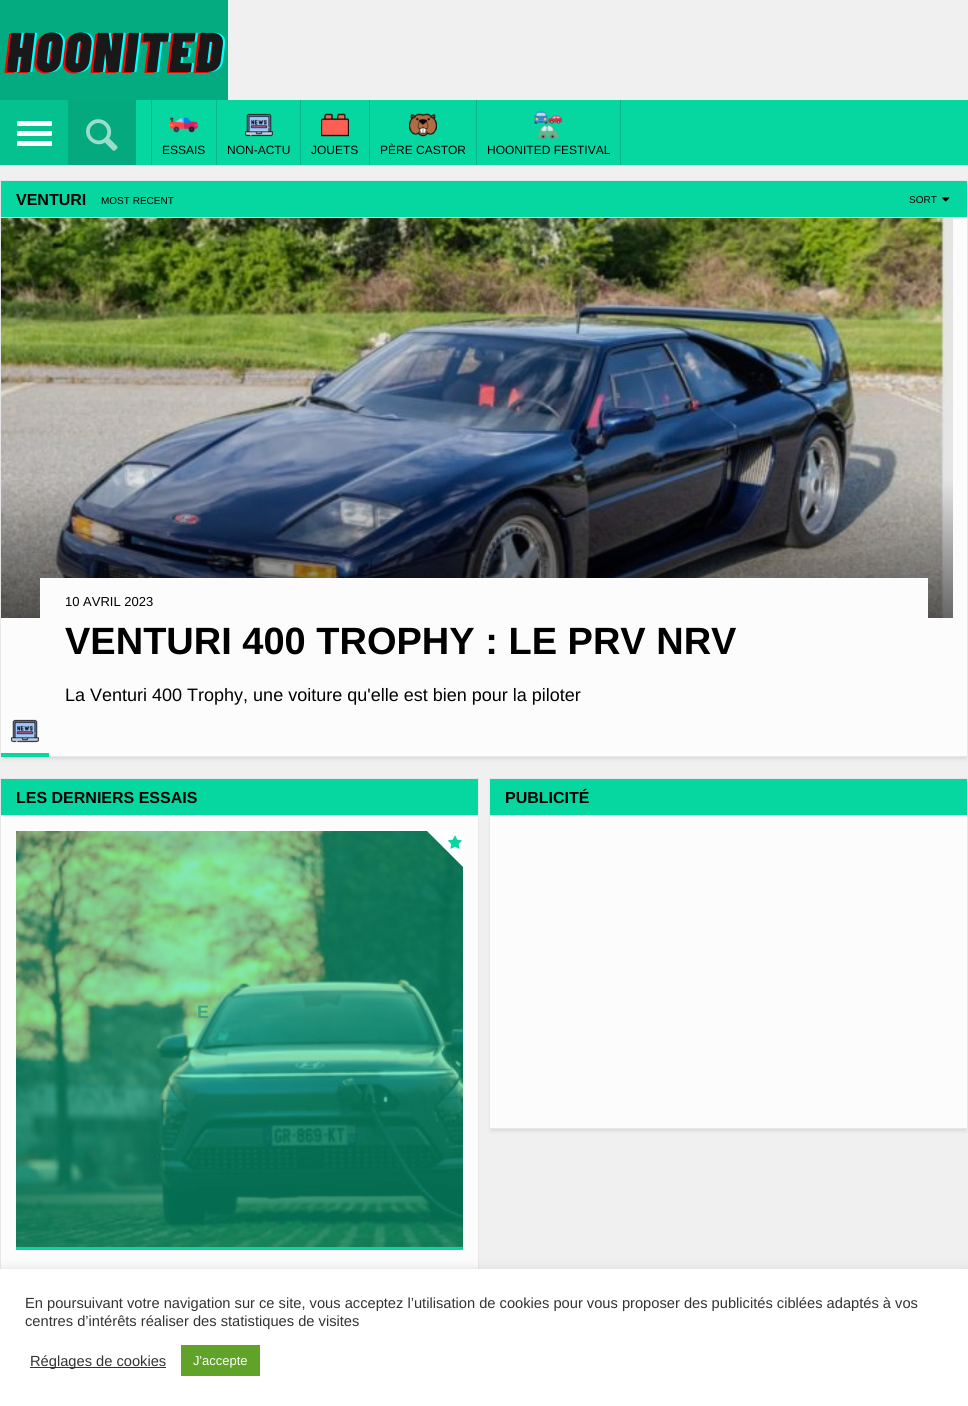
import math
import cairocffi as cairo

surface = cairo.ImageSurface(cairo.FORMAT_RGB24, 968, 1406)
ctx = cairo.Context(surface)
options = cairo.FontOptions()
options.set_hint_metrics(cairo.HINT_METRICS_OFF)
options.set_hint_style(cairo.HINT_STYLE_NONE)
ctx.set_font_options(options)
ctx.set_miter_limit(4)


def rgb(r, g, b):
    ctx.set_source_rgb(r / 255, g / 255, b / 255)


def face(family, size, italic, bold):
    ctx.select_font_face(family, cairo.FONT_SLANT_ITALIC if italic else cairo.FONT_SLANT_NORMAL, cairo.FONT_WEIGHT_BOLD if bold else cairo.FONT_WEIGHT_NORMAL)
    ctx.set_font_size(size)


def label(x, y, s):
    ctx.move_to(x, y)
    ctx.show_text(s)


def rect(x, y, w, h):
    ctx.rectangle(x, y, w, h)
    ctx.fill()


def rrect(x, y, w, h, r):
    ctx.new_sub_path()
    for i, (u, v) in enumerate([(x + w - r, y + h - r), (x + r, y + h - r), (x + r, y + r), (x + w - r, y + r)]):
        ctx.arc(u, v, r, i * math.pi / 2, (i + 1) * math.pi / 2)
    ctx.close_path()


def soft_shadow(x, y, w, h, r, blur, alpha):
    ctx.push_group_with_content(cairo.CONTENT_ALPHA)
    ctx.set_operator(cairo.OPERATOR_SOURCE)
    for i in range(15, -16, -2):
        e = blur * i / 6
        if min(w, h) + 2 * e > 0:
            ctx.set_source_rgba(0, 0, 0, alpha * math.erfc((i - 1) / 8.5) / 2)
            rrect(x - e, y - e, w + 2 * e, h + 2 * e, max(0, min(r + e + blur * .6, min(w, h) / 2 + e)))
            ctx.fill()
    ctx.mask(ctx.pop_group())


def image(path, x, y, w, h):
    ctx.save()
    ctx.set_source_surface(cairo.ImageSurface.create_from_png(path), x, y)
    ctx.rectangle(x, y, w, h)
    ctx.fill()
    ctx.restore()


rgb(240, 240, 240)
ctx.paint()
rgb(5, 171, 128)
rect(0, 0, 228, 100)
image('image0.png', 4, 32, 222, 42)
rgb(6, 214, 160)
rect(136, 100, 832, 65)
rgb(5, 193, 144)
rect(0, 100, 68, 65)
rgb(255, 255, 255)
rrect(17, 131, 35, 5, 1)
ctx.fill()
rrect(17, 121, 35, 5, 1)
ctx.fill()
rrect(17, 141, 35, 5, 1)
ctx.fill()
rgb(5, 169, 126)
rect(68, 100, 68, 65)
image('image1.png', 86, 119, 32, 32)
rgb(5, 182, 136)
rect(151, 100, 1, 65)
rect(216, 100, 1, 65)
image('image2.png', 170, 117, 28, 16)
face('Liberation Sans', 12, 0, 0)
rgb(0, 0, 0)
label(162, 154, 'ESSAIS')
rgb(5, 182, 136)
rect(300, 100, 1, 65)
image('image3.png', 245, 113, 28, 24)
rgb(0, 0, 0)
label(227, 154, 'NON-ACTU')
rgb(5, 182, 136)
rect(369, 100, 1, 65)
image('image4.png', 321, 113, 28, 24)
rgb(0, 0, 0)
label(311, 154, 'JOUETS')
rgb(5, 182, 136)
rect(476, 100, 1, 65)
image('image5.png', 409, 113, 28, 24)
rgb(0, 0, 0)
label(380, 154, 'PÈRE CASTOR')
rgb(5, 182, 136)
rect(620, 100, 1, 65)
image('image6.png', 534, 111, 28, 28)
rgb(0, 0, 0)
label(487, 154, 'HOONITED FESTIVAL')
rgb(6, 214, 160)
ctx.rectangle(0.5, 180.5, 967, 37)
ctx.fill_preserve()
rgb(231, 231, 231)
ctx.set_line_width(1)
ctx.stroke()
face('Liberation Sans', 16, 0, 1)
rgb(0, 0, 0)
label(16, 205, 'VENTURI')
face('Liberation Sans', 10, 0, 0)
label(101, 204, 'MOST RECENT')
label(909, 203, 'SORT')
image('image7.png', 942, 197, 8, 5)
rgb(0, 0, 0)
soft_shadow(2, 223, 964, 536, 0, 2, 0.1)
rgb(252, 252, 252)
ctx.rectangle(0.5, 217.5, 967, 539)
ctx.fill_preserve()
rgb(231, 231, 231)
ctx.stroke()
image('image8.png', 1, 218, 952, 400)
rgb(252, 252, 252)
rect(40, 578, 888, 40)
face('Liberation Sans', 13, 0, 0)
rgb(0, 0, 0)
label(65, 606, '10 AVRIL 2023')
face('Liberation Sans', 38, 0, 1)
label(65, 654, 'VENTURI 400 TROPHY : LE PRV NRV')
face('Liberation Sans', 18, 0, 0)
label(65, 701, 'La Venturi 400 Trophy, une voiture qu\'elle est bien pour la piloter')
image('image9.png', 11, 719, 28, 24)
rgb(6, 214, 160)
rect(1, 753, 48, 4)
rgb(252, 252, 252)
rect(1, 816, 477, 453)
ctx.rectangle(0.5, 778.5, 478, 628)
rgb(231, 231, 231)
ctx.stroke()
rgb(6, 214, 160)
rect(1, 779, 477, 36)
rgb(231, 231, 231)
rect(1, 815, 477, 1)
face('Liberation Sans', 16, 0, 1)
rgb(0, 0, 0)
label(16, 803, 'LES DERNIERS ESSAIS')
image('image10.png', 16, 831, 447, 416)
rgb(255, 255, 255)
ctx.new_path()
ctx.move_to(463, 831)
ctx.line_to(463, 867)
ctx.line_to(427, 831)
ctx.close_path()
ctx.fill()
image('image11.png', 448, 835, 14, 14)
face('Liberation Sans', 18, 0, 1)
rgb(65, 165, 131)
label(197, 1018, 'E')
rgb(6, 214, 160)
rect(16, 1247, 447, 3)
rgb(0, 0, 0)
soft_shadow(491, 784, 475, 347, 0, 2, 0.1)
rgb(252, 252, 252)
rect(490, 816, 477, 312)
ctx.rectangle(489.5, 778.5, 478, 350)
rgb(231, 231, 231)
ctx.stroke()
rgb(6, 214, 160)
rect(490, 779, 477, 36)
rgb(231, 231, 231)
rect(490, 815, 477, 1)
face('Liberation Sans', 16, 0, 1)
rgb(0, 0, 0)
label(505, 803, 'PUBLICITÉ')
rgb(172, 171, 171)
soft_shadow(0, 1268, 968, 137, 0, 5, 0.3)
rgb(255, 255, 255)
rect(0, 1269, 968, 137)
face('Liberation Sans', 14.67, 0, 0)
rgb(51, 51, 51)
label(25, 1308, 'En poursuivant votre navigation sur ce site, vous acceptez l’utilisation de cookies pour vous proposer des publicités ciblées adaptés à vos')
label(25, 1326, 'centres d’intérêts réaliser des statistiques de visites')
rect(30, 1367, 136, 1)
label(30, 1366, 'Réglages de cookies')
rgb(97, 162, 41)
rect(181, 1345, 79, 31)
face('Liberation Sans', 13, 0, 0)
rgb(255, 255, 255)
label(193, 1365, 'J\'accepte')
surface.write_to_png('render.png')
